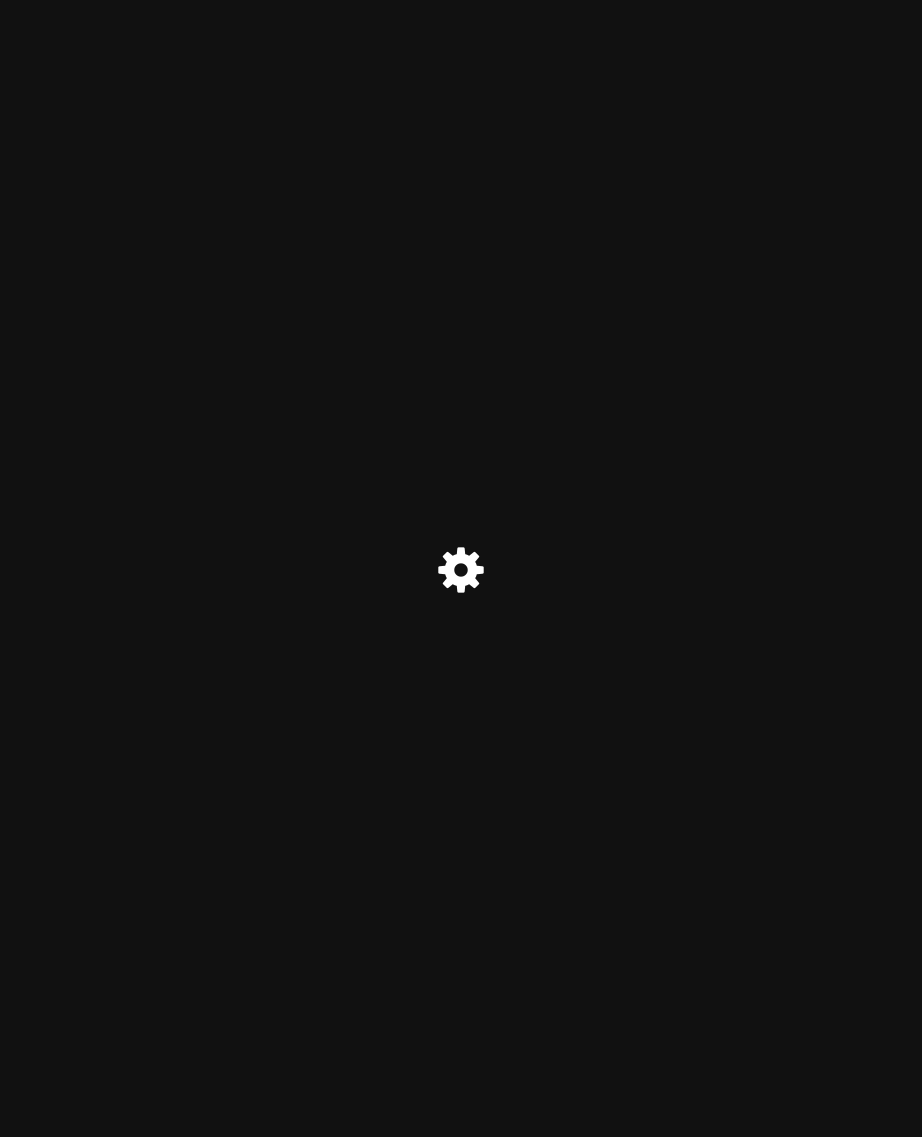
import math
import cairocffi as cairo

surface = cairo.ImageSurface(cairo.FORMAT_RGB24, 922, 1137)
ctx = cairo.Context(surface)
options = cairo.FontOptions()
options.set_hint_metrics(cairo.HINT_METRICS_OFF)
options.set_hint_style(cairo.HINT_STYLE_NONE)
ctx.set_font_options(options)
ctx.set_miter_limit(4)


def rgb(r, g, b):
    ctx.set_source_rgb(r / 255, g / 255, b / 255)


def image(path, x, y, w, h):
    ctx.save()
    ctx.set_source_surface(cairo.ImageSurface.create_from_png(path), x, y)
    ctx.rectangle(x, y, w, h)
    ctx.fill()
    ctx.restore()


rgb(17, 17, 17)
ctx.paint()
image('image0.png', 438, 547, 46, 46)
surface.write_to_png('render.png')
